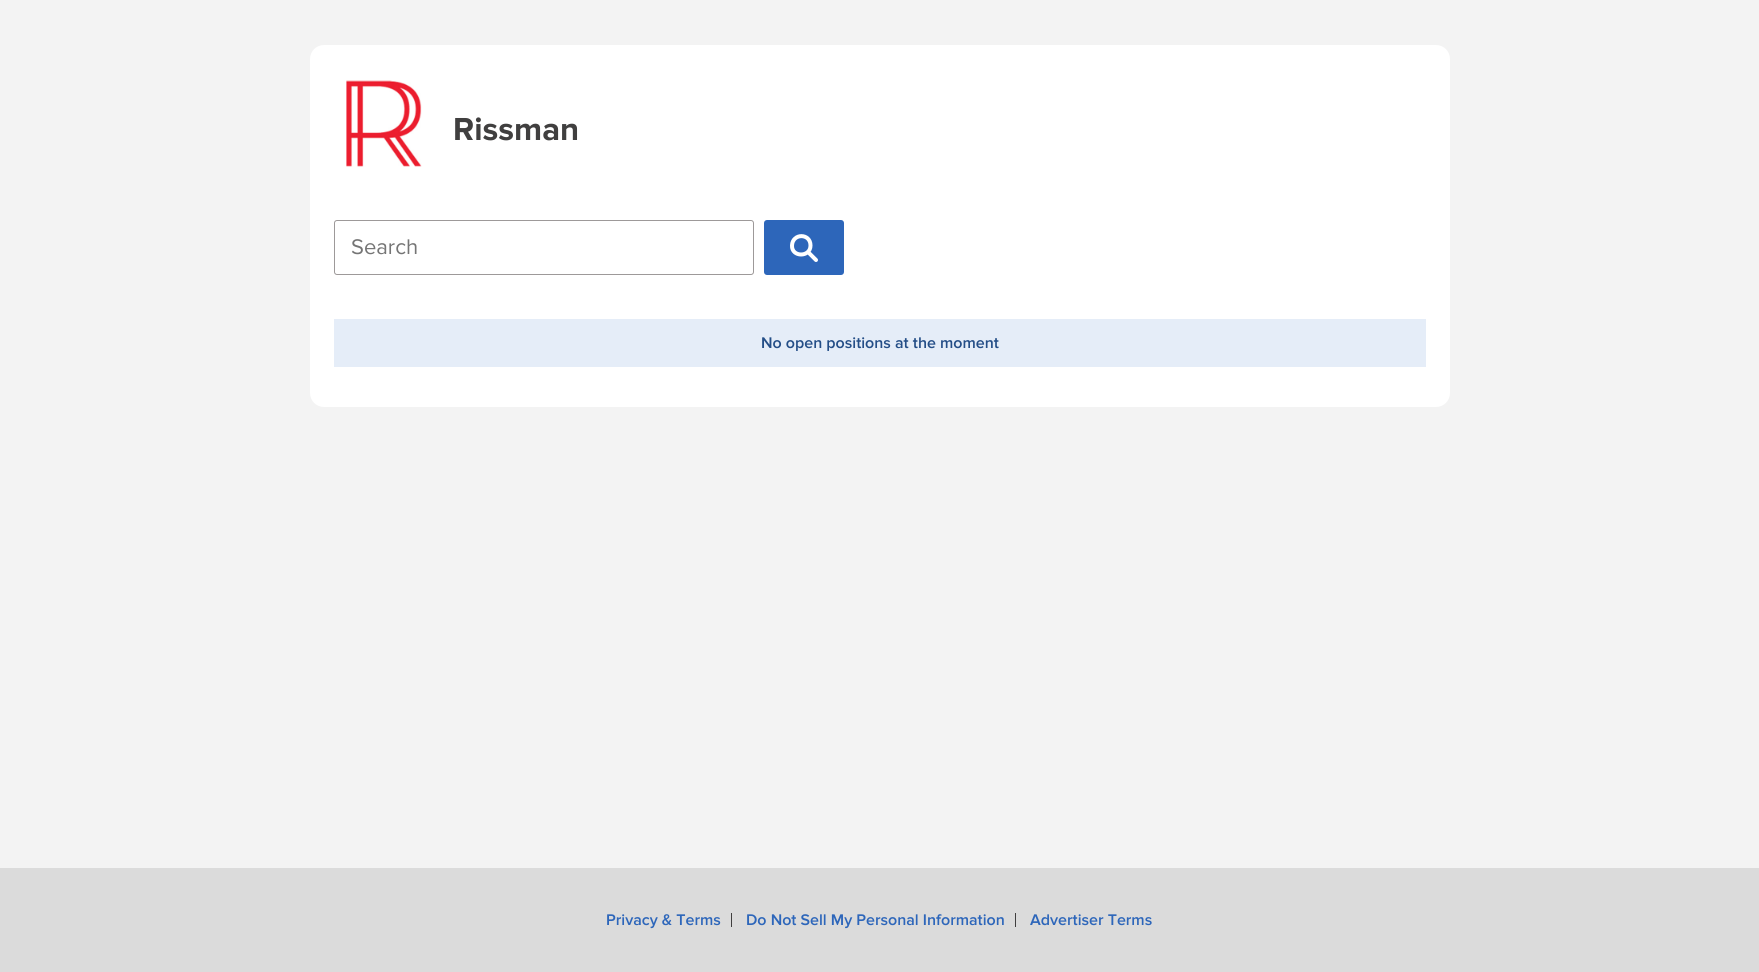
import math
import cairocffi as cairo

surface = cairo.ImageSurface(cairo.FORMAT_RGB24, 1759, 972)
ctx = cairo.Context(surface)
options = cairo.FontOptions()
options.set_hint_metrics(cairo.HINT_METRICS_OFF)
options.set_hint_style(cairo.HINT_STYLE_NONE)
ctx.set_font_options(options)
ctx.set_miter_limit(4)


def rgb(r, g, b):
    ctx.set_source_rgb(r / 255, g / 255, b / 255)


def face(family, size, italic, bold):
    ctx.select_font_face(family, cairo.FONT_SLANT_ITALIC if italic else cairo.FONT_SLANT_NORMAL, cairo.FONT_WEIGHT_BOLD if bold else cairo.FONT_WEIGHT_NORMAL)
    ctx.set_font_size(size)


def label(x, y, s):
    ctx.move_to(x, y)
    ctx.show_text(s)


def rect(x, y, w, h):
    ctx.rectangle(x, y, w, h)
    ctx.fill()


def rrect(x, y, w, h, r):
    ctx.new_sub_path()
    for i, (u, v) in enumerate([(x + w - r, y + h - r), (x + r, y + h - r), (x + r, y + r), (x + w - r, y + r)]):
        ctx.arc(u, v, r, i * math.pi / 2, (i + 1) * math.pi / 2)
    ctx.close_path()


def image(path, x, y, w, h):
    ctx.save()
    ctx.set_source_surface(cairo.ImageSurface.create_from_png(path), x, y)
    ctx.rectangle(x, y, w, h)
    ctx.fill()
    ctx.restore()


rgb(243, 243, 243)
ctx.paint()
rgb(255, 255, 255)
rrect(310, 45, 1140, 362, 14)
ctx.fill()
image('image0.png', 346, 80, 76, 87)
face('Proxima Nova', 33, 0, 1)
rgb(64, 63, 63)
label(453, 140, 'Rissman')
rrect(334.5, 220.5, 419, 54, 2.5)
rgb(157, 153, 153)
ctx.set_line_width(1)
ctx.stroke()
face('Proxima Nova', 22, 0, 0)
rgb(117, 117, 117)
label(351, 254, 'Search')
rgb(45, 102, 186)
rrect(764, 220, 80, 55, 3)
ctx.fill()
ctx.new_path()
ctx.move_to(816, 260)
ctx.line_to(808, 252)
ctx.close_path()
ctx.move_to(810.5, 245.5)
ctx.curve_to(810.5, 257.5, 791.5, 257.5, 792, 245.5)
ctx.curve_to(792.5, 233, 810.5, 233, 810.5, 245.5)
ctx.close_path()
rgb(255, 255, 255)
ctx.set_line_width(4)
ctx.set_line_cap(cairo.LINE_CAP_ROUND)
ctx.set_line_join(cairo.LINE_JOIN_ROUND)
ctx.stroke()
rgb(229, 237, 248)
rect(334, 319, 1092, 48)
face('Proxima Nova SemiBold', 16, 0, 0)
rgb(36, 78, 135)
label(761, 348, 'No open positions at the moment')
rgb(219, 219, 219)
rect(0, 868, 1759, 104)
rgb(64, 63, 63)
rect(731, 913, 1, 14)
rgb(45, 102, 186)
label(606, 925, 'Privacy & Terms')
rgb(64, 63, 63)
rect(1015, 913, 1, 14)
rgb(45, 102, 186)
label(746, 925, 'Do Not Sell My Personal Information')
label(1030, 925, 'Advertiser Terms')
surface.write_to_png('render.png')
